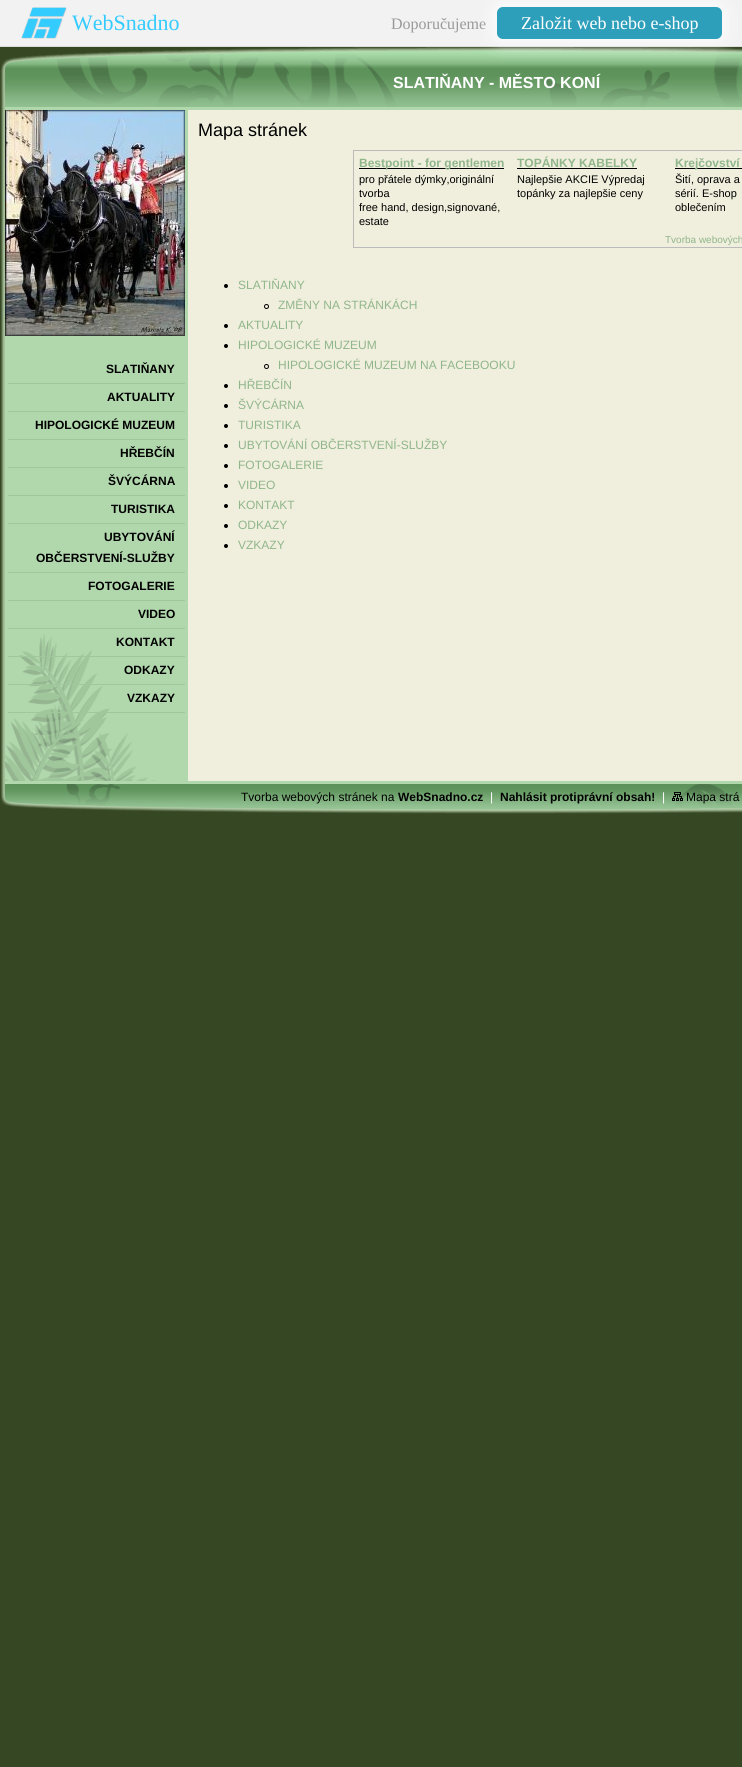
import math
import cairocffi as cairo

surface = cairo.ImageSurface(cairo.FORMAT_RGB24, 742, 1767)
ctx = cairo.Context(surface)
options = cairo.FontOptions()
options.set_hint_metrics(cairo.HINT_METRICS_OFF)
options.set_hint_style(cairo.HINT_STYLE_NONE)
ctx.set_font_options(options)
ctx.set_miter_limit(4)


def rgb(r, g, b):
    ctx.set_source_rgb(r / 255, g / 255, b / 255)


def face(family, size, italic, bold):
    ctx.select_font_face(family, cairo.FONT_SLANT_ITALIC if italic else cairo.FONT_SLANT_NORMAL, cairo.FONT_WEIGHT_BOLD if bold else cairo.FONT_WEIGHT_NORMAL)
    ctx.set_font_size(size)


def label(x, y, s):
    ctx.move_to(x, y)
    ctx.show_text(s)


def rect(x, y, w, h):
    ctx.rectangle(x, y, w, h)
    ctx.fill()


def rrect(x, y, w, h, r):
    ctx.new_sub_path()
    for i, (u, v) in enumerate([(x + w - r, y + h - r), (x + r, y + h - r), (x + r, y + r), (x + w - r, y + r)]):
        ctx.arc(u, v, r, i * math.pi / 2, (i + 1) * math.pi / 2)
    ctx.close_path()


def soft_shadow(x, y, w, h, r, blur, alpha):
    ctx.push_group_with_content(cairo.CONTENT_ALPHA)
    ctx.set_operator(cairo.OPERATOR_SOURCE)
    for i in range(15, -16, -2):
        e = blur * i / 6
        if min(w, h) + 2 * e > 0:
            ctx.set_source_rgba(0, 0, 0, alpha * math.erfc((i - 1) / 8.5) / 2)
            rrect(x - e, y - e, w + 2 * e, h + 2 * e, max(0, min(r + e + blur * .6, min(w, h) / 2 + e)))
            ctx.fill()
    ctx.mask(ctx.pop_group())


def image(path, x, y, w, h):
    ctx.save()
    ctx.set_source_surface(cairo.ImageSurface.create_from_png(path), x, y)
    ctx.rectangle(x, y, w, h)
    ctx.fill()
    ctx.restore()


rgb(54, 71, 35)
ctx.paint()
rgb(242, 242, 242)
rect(0, 0, 742, 46)
rgb(221, 221, 221)
rect(0, 46, 742, 1)
image('image0.png', 21, 7, 46, 32)
face('Liberation Serif', 22, 0, 0)
rgb(52, 203, 255)
label(72, 30, 'WebSnadno')
face('Liberation Serif', 16, 0, 0)
rgb(153, 153, 153)
label(391, 29, 'Doporučujeme')
image('image1.png', 0, 47, 742, 60)
rgb(255, 255, 255)
soft_shadow(493, 3, 233, 40, 10, 8, 0.75)
rgb(45, 159, 187)
rrect(497, 7, 225, 32, 6)
ctx.fill()
face('Liberation Serif', 18, 0, 0)
rgb(255, 255, 255)
label(521, 29, 'Založit web nebo e-shop')
face('Liberation Sans', 16, 0, 1)
label(393, 88, 'SLATIŇANY - MĚSTO KONÍ')
image('image2.png', 1, 107, 4, 677)
rgb(177, 216, 173)
rect(5, 107, 180, 677)
image('image3.png', 5, 634, 150, 147)
image('image4.png', 5, 110, 180, 226)
rgb(160, 199, 156)
rect(8, 383, 177, 1)
face('Liberation Sans', 12, 0, 1)
rgb(0, 0, 0)
label(106, 373, 'SLATIŇANY')
rgb(160, 199, 156)
rect(8, 411, 177, 1)
rgb(0, 0, 0)
label(107, 401, 'AKTUALITY')
rgb(160, 199, 156)
rect(8, 439, 177, 1)
rgb(0, 0, 0)
label(35, 429, 'HIPOLOGICKÉ MUZEUM')
rgb(160, 199, 156)
rect(8, 467, 177, 1)
rgb(0, 0, 0)
label(120, 457, 'HŘEBČÍN')
rgb(160, 199, 156)
rect(8, 495, 177, 1)
rgb(0, 0, 0)
label(108, 485, 'ŠVÝCÁRNA')
rgb(160, 199, 156)
rect(8, 523, 177, 1)
rgb(0, 0, 0)
label(111, 513, 'TURISTIKA')
rgb(160, 199, 156)
rect(8, 572, 177, 1)
rgb(0, 0, 0)
label(104, 541, 'UBYTOVÁNÍ')
label(36, 562, 'OBČERSTVENÍ-SLUŽBY')
rgb(160, 199, 156)
rect(8, 600, 177, 1)
rgb(0, 0, 0)
label(88, 590, 'FOTOGALERIE')
rgb(160, 199, 156)
rect(8, 628, 177, 1)
rgb(0, 0, 0)
label(138, 618, 'VIDEO')
rgb(160, 199, 156)
rect(8, 656, 177, 1)
rgb(0, 0, 0)
label(116, 646, 'KONTAKT')
rgb(160, 199, 156)
rect(8, 684, 177, 1)
rgb(0, 0, 0)
label(124, 674, 'ODKAZY')
rgb(160, 199, 156)
rect(8, 712, 177, 1)
rgb(0, 0, 0)
label(127, 702, 'VZKAZY')
rgb(240, 238, 220)
rect(188, 110, 554, 671)
rgb(177, 216, 173)
rect(185, 107, 557, 3)
rect(185, 781, 557, 3)
rect(185, 107, 3, 677)
face('Liberation Sans', 18, 0, 0)
rgb(0, 0, 0)
label(198, 136, 'Mapa stránek')
ctx.rectangle(353.5, 150.5, 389, 97)
rgb(187, 187, 187)
ctx.set_line_width(1)
ctx.stroke()
rgb(0, 0, 0)
rect(359, 168, 145, 1)
face('Liberation Sans', 12, 0, 1)
rgb(144, 182, 139)
label(359, 167, 'Bestpoint - for gentlemen')
face('Liberation Sans', 11, 0, 0)
rgb(0, 0, 0)
label(359, 183, 'pro přátele dýmky,originální')
label(359, 197, 'tvorba')
label(359, 211, 'free hand, design,signované,')
label(359, 225, 'estate')
face('Liberation Sans', 12, 0, 1)
rgb(144, 182, 139)
label(517, 167, 'TOPÁNKY KABELKY')
rgb(0, 0, 0)
rect(517, 168, 120, 1)
face('Liberation Sans', 11, 0, 0)
label(517, 183, 'Najlepšie AKCIE Výpredaj')
label(517, 197, 'topánky za najlepšie ceny')
rect(675, 168, 67, 1)
face('Liberation Sans', 12, 0, 1)
rgb(144, 182, 139)
label(675, 167, 'Krejčovství')
face('Liberation Sans', 11, 0, 0)
rgb(0, 0, 0)
label(675, 183, 'Šití, oprava a')
label(675, 197, 'sérií. E-shop')
label(675, 211, 'oblečením')
face('Liberation Sans', 10, 0, 0)
rgb(144, 182, 139)
label(665, 243, 'Tvorba webových')
rgb(0, 0, 0)
ctx.new_path()
ctx.arc(226, 286, 2, 0, 2 * math.pi)
ctx.fill()
face('Liberation Sans', 12, 0, 0)
rgb(144, 182, 139)
label(238, 289, 'SLATIŇANY')
ctx.new_path()
ctx.arc(266.5, 306.5, 2, 0, 2 * math.pi)
rgb(0, 0, 0)
ctx.stroke()
rgb(144, 182, 139)
label(278, 309, 'ZMĚNY NA STRÁNKÁCH')
rgb(0, 0, 0)
ctx.new_path()
ctx.arc(226, 326, 2, 0, 2 * math.pi)
ctx.fill()
rgb(144, 182, 139)
label(238, 329, 'AKTUALITY')
rgb(0, 0, 0)
ctx.new_path()
ctx.arc(226, 346, 2, 0, 2 * math.pi)
ctx.fill()
rgb(144, 182, 139)
label(238, 349, 'HIPOLOGICKÉ MUZEUM')
ctx.new_path()
ctx.arc(266.5, 366.5, 2, 0, 2 * math.pi)
rgb(0, 0, 0)
ctx.stroke()
rgb(144, 182, 139)
label(278, 369, 'HIPOLOGICKÉ MUZEUM NA FACEBOOKU')
rgb(0, 0, 0)
ctx.new_path()
ctx.arc(226, 386, 2, 0, 2 * math.pi)
ctx.fill()
rgb(144, 182, 139)
label(238, 389, 'HŘEBČÍN')
rgb(0, 0, 0)
ctx.new_path()
ctx.arc(226, 406, 2, 0, 2 * math.pi)
ctx.fill()
rgb(144, 182, 139)
label(238, 409, 'ŠVÝCÁRNA')
rgb(0, 0, 0)
ctx.new_path()
ctx.arc(226, 426, 2, 0, 2 * math.pi)
ctx.fill()
rgb(144, 182, 139)
label(238, 429, 'TURISTIKA')
rgb(0, 0, 0)
ctx.new_path()
ctx.arc(226, 446, 2, 0, 2 * math.pi)
ctx.fill()
rgb(144, 182, 139)
label(238, 449, 'UBYTOVÁNÍ OBČERSTVENÍ-SLUŽBY')
rgb(0, 0, 0)
ctx.new_path()
ctx.arc(226, 466, 2, 0, 2 * math.pi)
ctx.fill()
rgb(144, 182, 139)
label(238, 469, 'FOTOGALERIE')
rgb(0, 0, 0)
ctx.new_path()
ctx.arc(226, 486, 2, 0, 2 * math.pi)
ctx.fill()
rgb(144, 182, 139)
label(238, 489, 'VIDEO')
rgb(0, 0, 0)
ctx.new_path()
ctx.arc(226, 506, 2, 0, 2 * math.pi)
ctx.fill()
rgb(144, 182, 139)
label(238, 509, 'KONTAKT')
rgb(0, 0, 0)
ctx.new_path()
ctx.arc(226, 526, 2, 0, 2 * math.pi)
ctx.fill()
rgb(144, 182, 139)
label(238, 529, 'ODKAZY')
rgb(0, 0, 0)
ctx.new_path()
ctx.arc(226, 546, 2, 0, 2 * math.pi)
ctx.fill()
rgb(144, 182, 139)
label(238, 549, 'VZKAZY')
image('image5.png', 1, 784, 741, 30)
rgb(0, 0, 0)
label(241, 801, 'Tvorba webových stránek na')
face('Liberation Sans', 12, 0, 1)
label(398, 801, 'WebSnadno.cz')
face('Liberation Sans', 12, 0, 0)
rgb(255, 255, 255)
label(490, 801, '|')
face('Liberation Sans', 12, 0, 1)
rgb(0, 0, 0)
label(500, 801, 'Nahlásit protiprávní obsah!')
face('Liberation Sans', 12, 0, 0)
rgb(255, 255, 255)
label(662, 801, '|')
image('image6.png', 672, 792, 11, 9)
rgb(0, 0, 0)
label(686, 801, 'Mapa strá')
surface.write_to_png('render.png')
